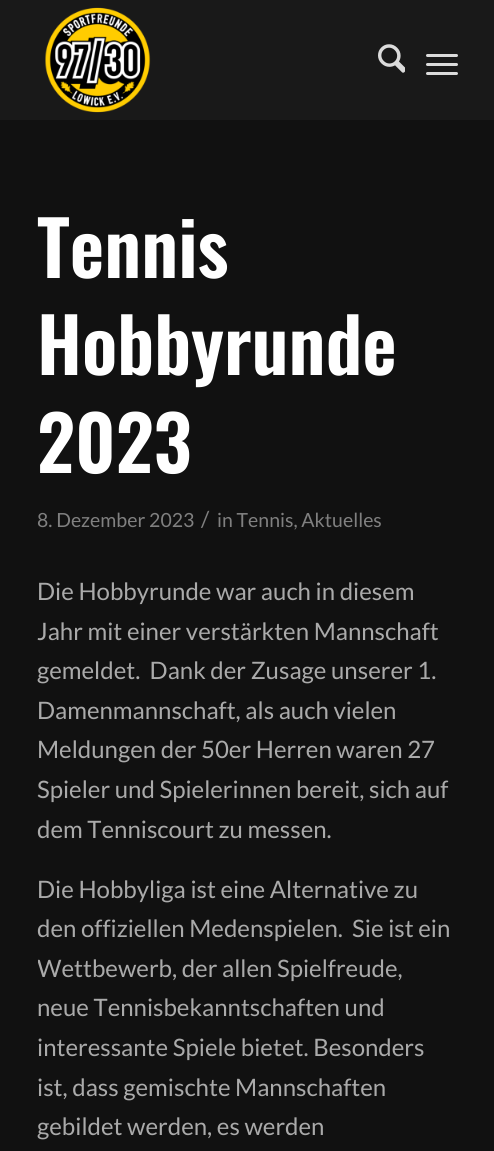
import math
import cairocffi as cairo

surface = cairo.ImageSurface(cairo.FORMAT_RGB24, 494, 1151)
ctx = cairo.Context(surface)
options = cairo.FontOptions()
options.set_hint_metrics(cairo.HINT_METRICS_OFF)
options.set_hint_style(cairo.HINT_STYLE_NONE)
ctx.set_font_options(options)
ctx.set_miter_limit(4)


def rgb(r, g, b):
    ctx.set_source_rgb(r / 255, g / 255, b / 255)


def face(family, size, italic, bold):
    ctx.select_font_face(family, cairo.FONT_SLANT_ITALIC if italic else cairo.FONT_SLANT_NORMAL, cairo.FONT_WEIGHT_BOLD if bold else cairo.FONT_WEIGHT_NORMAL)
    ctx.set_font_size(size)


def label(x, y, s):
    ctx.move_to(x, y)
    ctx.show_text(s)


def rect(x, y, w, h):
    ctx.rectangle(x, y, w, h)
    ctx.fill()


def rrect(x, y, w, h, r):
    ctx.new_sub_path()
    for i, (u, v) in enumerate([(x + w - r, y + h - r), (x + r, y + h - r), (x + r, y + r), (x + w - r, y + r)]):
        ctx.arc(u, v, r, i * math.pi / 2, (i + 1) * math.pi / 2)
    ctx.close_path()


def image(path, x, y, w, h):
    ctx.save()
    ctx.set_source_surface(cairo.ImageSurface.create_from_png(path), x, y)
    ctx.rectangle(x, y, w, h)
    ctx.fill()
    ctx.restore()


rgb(17, 17, 17)
ctx.paint()
rgb(25, 25, 25)
rect(0, 0, 494, 120)
image('image0.png', 45, 7, 106, 106)
image('image1.png', 378, 44, 27, 29)
rgb(219, 219, 219)
rrect(426, 63, 32, 3, 1.5)
ctx.fill()
rrect(426, 54, 32, 3, 1.5)
ctx.fill()
rrect(426, 72, 32, 3, 1.5)
ctx.fill()
face('Oswald SemiBold', 75, 0, 0)
rgb(255, 255, 255)
label(37, 278, 'Tennis')
label(37, 375, 'Hobbyrunde')
label(37, 473, '2023')
face('Lato', 19.5, 0, 0)
rgb(128, 128, 128)
label(37, 527, '8. Dezember 2023')
face('Lato', 22, 0, 0)
label(201, 527, '/')
face('Lato', 19.5, 0, 0)
label(217, 527, 'in Tennis, Aktuelles')
face('Lato', 24, 0, 0)
rgb(170, 170, 170)
label(37, 600, 'Die Hobbyrunde war auch in diesem')
label(37, 640, 'Jahr mit einer verstärkten Mannschaft')
label(37, 679, 'gemeldet.  Dank der Zusage unserer 1.')
label(37, 719, 'Damenmannschaft, als auch vielen')
label(37, 758, 'Meldungen der 50er Herren waren 27')
label(37, 798, 'Spieler und Spielerinnen bereit, sich auf')
label(37, 838, 'dem Tenniscourt zu messen.')
label(37, 898, 'Die Hobbyliga ist eine Alternative zu')
label(37, 937, 'den offiziellen Medenspielen.  Sie ist ein')
ctx.save()
ctx.rectangle(38, 195, 420, 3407)
ctx.clip()
label(37, 977, 'Wettbewerb, der allen Spielfreude,')
ctx.restore()
label(37, 1016, 'neue Tennisbekanntschaften und')
label(37, 1056, 'interessante Spiele bietet. Besonders')
label(37, 1096, 'ist, dass gemischte Mannschaften')
label(37, 1135, 'gebildet werden, es werden')
surface.write_to_png('render.png')
